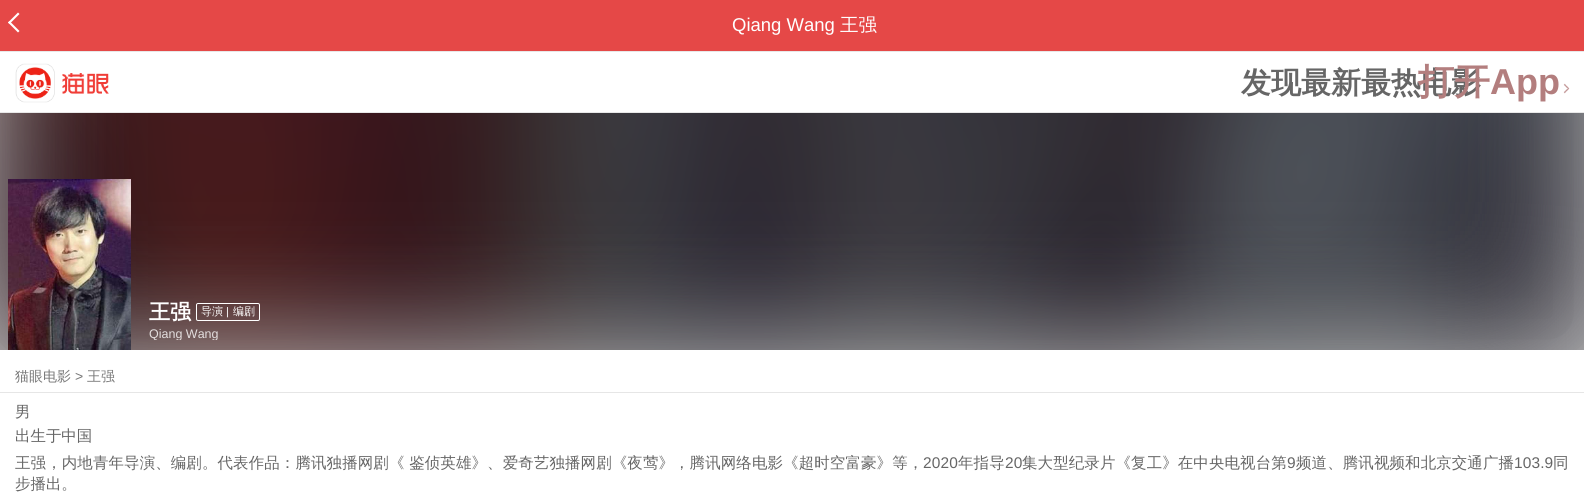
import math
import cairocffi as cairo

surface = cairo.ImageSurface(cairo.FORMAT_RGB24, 1584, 497)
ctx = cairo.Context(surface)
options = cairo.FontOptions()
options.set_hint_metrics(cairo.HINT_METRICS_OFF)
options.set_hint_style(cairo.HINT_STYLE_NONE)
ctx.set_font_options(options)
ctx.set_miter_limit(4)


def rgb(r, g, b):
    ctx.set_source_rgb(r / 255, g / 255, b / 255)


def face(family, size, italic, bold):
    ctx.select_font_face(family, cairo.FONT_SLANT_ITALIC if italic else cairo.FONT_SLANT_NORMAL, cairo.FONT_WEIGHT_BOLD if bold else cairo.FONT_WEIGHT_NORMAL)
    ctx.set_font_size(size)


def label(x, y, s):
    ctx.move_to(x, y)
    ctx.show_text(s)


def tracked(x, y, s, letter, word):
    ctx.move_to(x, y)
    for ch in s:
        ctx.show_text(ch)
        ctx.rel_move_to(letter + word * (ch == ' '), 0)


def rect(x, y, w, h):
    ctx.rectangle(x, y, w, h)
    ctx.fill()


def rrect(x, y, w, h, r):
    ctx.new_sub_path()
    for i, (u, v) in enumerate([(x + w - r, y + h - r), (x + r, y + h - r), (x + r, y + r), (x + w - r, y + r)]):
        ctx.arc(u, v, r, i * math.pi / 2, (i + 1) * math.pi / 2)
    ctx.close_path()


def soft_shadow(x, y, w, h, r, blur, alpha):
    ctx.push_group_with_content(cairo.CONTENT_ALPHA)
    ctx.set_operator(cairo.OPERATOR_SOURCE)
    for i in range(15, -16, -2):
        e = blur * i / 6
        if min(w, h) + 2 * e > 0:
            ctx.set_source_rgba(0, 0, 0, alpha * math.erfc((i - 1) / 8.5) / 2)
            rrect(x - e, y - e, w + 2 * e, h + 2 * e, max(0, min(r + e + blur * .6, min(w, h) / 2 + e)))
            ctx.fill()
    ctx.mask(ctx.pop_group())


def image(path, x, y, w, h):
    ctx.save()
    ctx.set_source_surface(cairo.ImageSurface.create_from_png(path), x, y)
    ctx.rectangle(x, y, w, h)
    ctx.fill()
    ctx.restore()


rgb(255, 255, 255)
ctx.paint()
rgb(229, 72, 71)
rect(0, 0, 1584, 51)
rgb(204, 204, 204)
rect(0, 113, 1584, 237)
ctx.save()
ctx.rectangle(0, 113, 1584, 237)
ctx.clip()
rgb(173, 173, 173)
soft_shadow(0, -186, 1584, 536, 0, 62, 1)
ctx.restore()
rgb(255, 255, 255)
ctx.new_path()
ctx.move_to(9.5, 21)
ctx.line_to(19.5, 31)
ctx.line_to(18, 32.5)
ctx.line_to(8, 22.5)
ctx.close_path()
ctx.fill()
ctx.new_path()
ctx.move_to(18, 12.5)
ctx.line_to(19.5, 14)
ctx.line_to(9.5, 24)
ctx.line_to(8, 22.5)
ctx.close_path()
ctx.fill()
face('Liberation Sans', 18.5, 0, 0)
label(732, 31, 'Qiang Wang')
face('WenQuanYi Zen Hei Medium', 18.5, 0, 0)
label(840, 31, '王强')
rgb(232, 232, 232)
rect(0, 51, 1584, 1)
rect(0, 112, 1584, 1)
image('image0.png', 15, 63, 94, 40)
face('WenQuanYi Zen Hei', 30, 0, 1)
rgb(102, 102, 102)
label(1241, 93, '发现最新最热电影')
face('WenQuanYi Zen Hei', 36, 0, 1)
rgb(179, 126, 126)
label(1418, 94, '打开')
face('Liberation Sans', 36, 0, 1)
label(1490, 94, 'App')
image('image1.png', 1563, 83, 7, 11)
image('image2.png', 0, 113, 1584, 237)
image('image3.png', 8, 179, 123, 171)
face('WenQuanYi Zen Hei', 21, 0, 1)
rgb(255, 255, 255)
label(149, 319, '王强')
rrect(196.5, 303.5, 63, 17, 1.5)
ctx.set_line_width(1)
ctx.stroke()
face('WenQuanYi Zen Hei Medium', 11, 0, 0)
label(201, 315, '导演')
face('Liberation Sans', 11, 0, 0)
label(226, 315, '|')
face('WenQuanYi Zen Hei Medium', 11, 0, 0)
label(233, 315, '编剧')
ctx.save()
ctx.rectangle(149, 328, 111, 12)
ctx.clip()
face('Liberation Sans', 12.5, 0, 0)
rgb(227, 222, 222)
label(149, 338, 'Qiang Wang')
ctx.restore()
face('WenQuanYi Zen Hei Medium', 14, 0, 0)
rgb(119, 119, 119)
label(15, 381, '猫眼电影')
face('Liberation Sans', 14, 0, 0)
label(75, 381, '>')
face('WenQuanYi Zen Hei Medium', 14, 0, 0)
label(87, 381, '王强')
rgb(230, 230, 230)
rect(0, 392, 1584, 1)
face('WenQuanYi Zen Hei Medium', 15.45, 0, 0)
rgb(102, 102, 102)
label(15, 417, '男')
label(15, 441, '出生于中国')
tracked(15, 468, '王强，内地青年导演、编剧。代表作品：腾讯独播网剧《 鉴侦英雄》、爱奇艺独播网剧《夜莺》，腾讯网络电影《超时空富豪》等，', 0.13, 0)
face('Liberation Sans', 15.45, 0, 0)
tracked(923, 468, '2020', 0.13, 0)
face('WenQuanYi Zen Hei Medium', 15.45, 0, 0)
tracked(958, 468, '年指导', 0.13, 0)
face('Liberation Sans', 15.45, 0, 0)
tracked(1005, 468, '20', 0.13, 0)
face('WenQuanYi Zen Hei Medium', 15.45, 0, 0)
tracked(1022, 468, '集大型纪录片《复工》在中央电视台第', 0.13, 0)
face('Liberation Sans', 15.45, 0, 0)
tracked(1287, 468, '9', 0.13, 0)
face('WenQuanYi Zen Hei Medium', 15.45, 0, 0)
tracked(1296, 468, '频道、腾讯视频和北京交通广播', 0.13, 0)
face('Liberation Sans', 15.45, 0, 0)
tracked(1514, 468, '103.9', 0.13, 0)
face('WenQuanYi Zen Hei Medium', 15.45, 0, 0)
tracked(1553, 468, '同', 0.13, 0)
label(15, 489, '步播出。')
surface.write_to_png('render.png')
